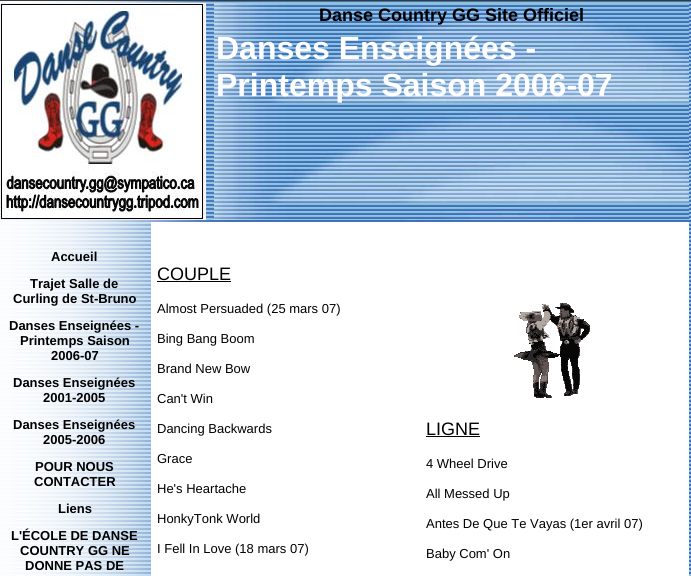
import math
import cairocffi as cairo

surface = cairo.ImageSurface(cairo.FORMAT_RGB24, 691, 576)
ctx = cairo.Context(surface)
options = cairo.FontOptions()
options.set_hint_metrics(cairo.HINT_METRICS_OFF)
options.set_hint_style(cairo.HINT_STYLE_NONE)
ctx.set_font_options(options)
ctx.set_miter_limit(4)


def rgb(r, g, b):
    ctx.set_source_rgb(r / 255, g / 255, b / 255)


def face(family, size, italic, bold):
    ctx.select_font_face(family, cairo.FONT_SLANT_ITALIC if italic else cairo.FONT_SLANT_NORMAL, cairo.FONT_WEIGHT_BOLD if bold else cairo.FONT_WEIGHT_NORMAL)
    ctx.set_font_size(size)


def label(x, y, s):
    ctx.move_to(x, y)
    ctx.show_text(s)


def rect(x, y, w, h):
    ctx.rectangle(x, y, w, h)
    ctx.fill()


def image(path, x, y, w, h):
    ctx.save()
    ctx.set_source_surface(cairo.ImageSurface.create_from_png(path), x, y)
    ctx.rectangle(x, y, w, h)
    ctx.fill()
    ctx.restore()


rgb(255, 255, 255)
ctx.paint()
image('image0.png', 0, 1, 691, 575)
rgb(57, 57, 57)
rect(0, 0, 691, 1)
image('image1.png', 0, 3, 206, 217)
image('image2.png', 214, 3, 475, 217)
face('Liberation Sans', 18, 0, 1)
rgb(0, 0, 0)
label(319, 21, 'Danse Country GG Site Officiel')
face('Liberation Sans', 32, 0, 1)
rgb(255, 255, 255)
label(216, 59, 'Danses Enseignées -')
label(216, 96, 'Printemps Saison 2006-07')
face('Liberation Sans', 13, 0, 1)
rgb(0, 0, 0)
label(51, 261, 'Accueil')
label(30, 288, 'Trajet Salle de')
label(13, 303, 'Curling de St-Bruno')
label(9, 330, 'Danses Enseignées -')
label(20, 345, 'Printemps Saison')
label(51, 360, '2006-07')
label(13, 387, 'Danses Enseignées')
label(43, 402, '2001-2005')
label(13, 429, 'Danses Enseignées')
label(43, 444, '2005-2006')
label(35, 471, 'POUR NOUS')
label(34, 486, 'CONTACTER')
label(58, 513, 'Liens')
label(11, 540, 'L\'ÉCOLE DE DANSE')
label(20, 555, 'COUNTRY GG NE')
label(25, 570, 'DONNE PAS DE')
rgb(255, 255, 255)
rect(151, 222, 538, 354)
face('Liberation Sans', 18, 0, 0)
rgb(0, 0, 0)
label(157, 280, 'COUPLE')
rect(157, 281, 74, 1)
face('Liberation Sans', 13, 0, 0)
label(157, 313, 'Almost Persuaded (25 mars 07)')
label(157, 343, 'Bing Bang Boom')
label(157, 373, 'Brand New Bow')
label(157, 403, 'Can\'t Win')
label(157, 433, 'Dancing Backwards')
label(157, 463, 'Grace')
label(157, 493, 'He\'s Heartache')
label(157, 523, 'HonkyTonk World')
label(157, 553, 'I Fell In Love (18 mars 07)')
image('image3.png', 514, 303, 76, 95)
face('Liberation Sans', 18, 0, 0)
label(426, 435, 'LIGNE')
rect(426, 436, 54, 1)
face('Liberation Sans', 13, 0, 0)
label(426, 468, '4 Wheel Drive')
label(426, 498, 'All Messed Up')
label(426, 528, 'Antes De Que Te Vayas (1er avril 07)')
label(426, 558, 'Baby Com\' On')
surface.write_to_png('render.png')
